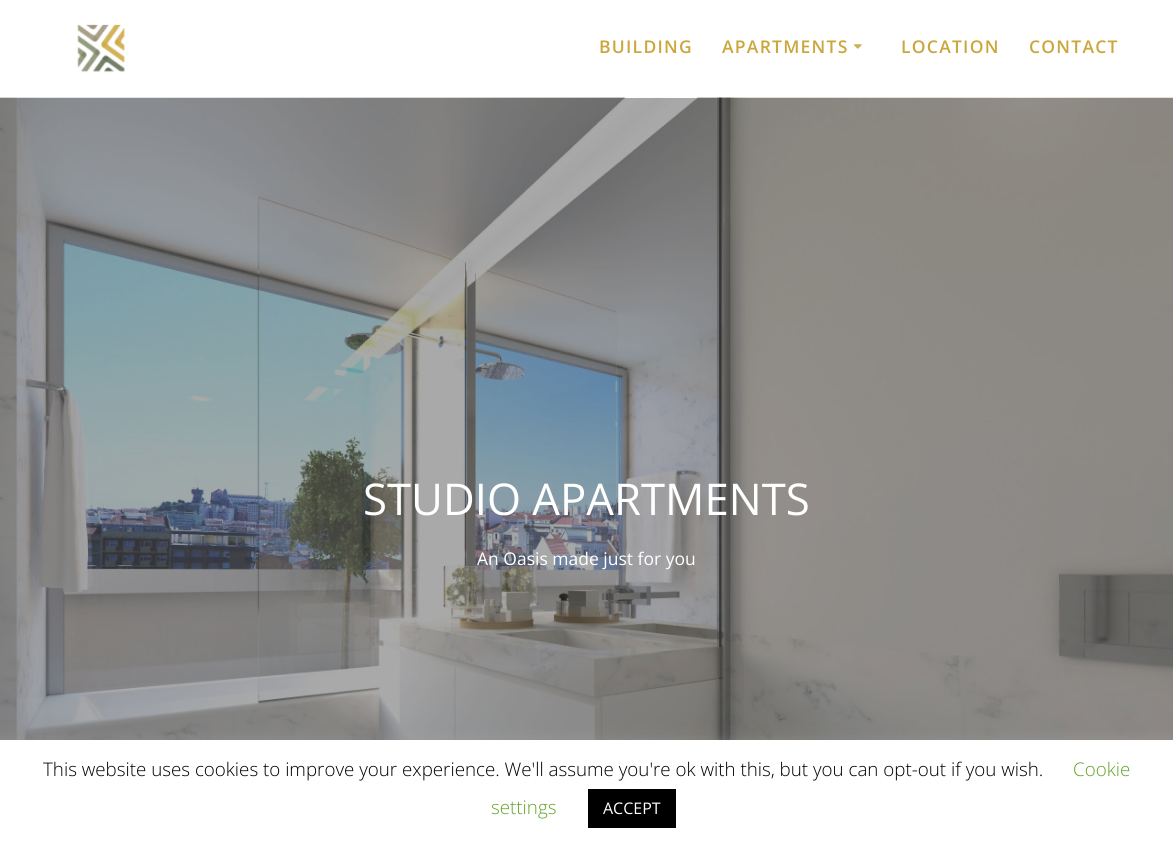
import math
import cairocffi as cairo

surface = cairo.ImageSurface(cairo.FORMAT_RGB24, 1173, 848)
ctx = cairo.Context(surface)
options = cairo.FontOptions()
options.set_hint_metrics(cairo.HINT_METRICS_OFF)
options.set_hint_style(cairo.HINT_STYLE_NONE)
ctx.set_font_options(options)
ctx.set_miter_limit(4)


def rgb(r, g, b):
    ctx.set_source_rgb(r / 255, g / 255, b / 255)


def face(family, size, italic, bold):
    ctx.select_font_face(family, cairo.FONT_SLANT_ITALIC if italic else cairo.FONT_SLANT_NORMAL, cairo.FONT_WEIGHT_BOLD if bold else cairo.FONT_WEIGHT_NORMAL)
    ctx.set_font_size(size)


def label(x, y, s):
    ctx.move_to(x, y)
    ctx.show_text(s)


def tracked(x, y, s, letter, word):
    ctx.move_to(x, y)
    for ch in s:
        ctx.show_text(ch)
        ctx.rel_move_to(letter + word * (ch == ' '), 0)


def rect(x, y, w, h):
    ctx.rectangle(x, y, w, h)
    ctx.fill()


def rrect(x, y, w, h, r):
    ctx.new_sub_path()
    for i, (u, v) in enumerate([(x + w - r, y + h - r), (x + r, y + h - r), (x + r, y + r), (x + w - r, y + r)]):
        ctx.arc(u, v, r, i * math.pi / 2, (i + 1) * math.pi / 2)
    ctx.close_path()


def soft_shadow(x, y, w, h, r, blur, alpha):
    ctx.push_group_with_content(cairo.CONTENT_ALPHA)
    ctx.set_operator(cairo.OPERATOR_SOURCE)
    for i in range(15, -16, -2):
        e = blur * i / 6
        if min(w, h) + 2 * e > 0:
            ctx.set_source_rgba(0, 0, 0, alpha * math.erfc((i - 1) / 8.5) / 2)
            rrect(x - e, y - e, w + 2 * e, h + 2 * e, max(0, min(r + e + blur * .6, min(w, h) / 2 + e)))
            ctx.fill()
    ctx.mask(ctx.pop_group())


def image(path, x, y, w, h):
    ctx.save()
    ctx.set_source_surface(cairo.ImageSurface.create_from_png(path), x, y)
    ctx.rectangle(x, y, w, h)
    ctx.fill()
    ctx.restore()


rgb(255, 255, 255)
ctx.paint()
ctx.save()
ctx.set_fill_rule(cairo.FILL_RULE_EVEN_ODD)
ctx.new_path()
ctx.move_to(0, 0)
ctx.line_to(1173, 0)
ctx.line_to(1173, 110)
ctx.line_to(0, 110)
ctx.close_path()
ctx.move_to(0, 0)
ctx.line_to(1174, 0)
ctx.line_to(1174, 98)
ctx.line_to(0, 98)
ctx.close_path()
ctx.clip()
rgb(0, 0, 0)
soft_shadow(-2, -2, 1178, 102, 0, 3, 0.33)
ctx.restore()
image('image0.png', 77, 24, 48, 49)
face('Open Sans SemiBold', 17.5, 0, 0)
rgb(202, 166, 59)
tracked(599, 53, 'BUILDING', 1.25, 0)
tracked(722, 53, 'APARTMENTS', 1.25, 0)
image('image1.png', 853, 44, 9, 5)
tracked(901, 53, 'LOCATION', 1.25, 0)
tracked(1029, 53, 'CONTACT', 1.25, 0)
image('image2.png', 0, 97, 1173, 643)
face('Open Sans', 43.75, 0, 0)
rgb(255, 255, 255)
label(363, 515, 'STUDIO APARTMENTS')
face('Open Sans', 17.5, 0, 0)
label(477, 565, 'An Oasis made just for you')
rgb(172, 171, 171)
soft_shadow(0, 739, 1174, 109, 0, 6, 0.3)
rgb(255, 255, 255)
rect(0, 740, 1173, 108)
face('Open Sans Light', 18.75, 0, 0)
rgb(0, 0, 0)
label(43, 776, 'This website uses cookies to improve your experience. We\'ll assume you\'re ok with this, but you can opt-out if you wish.')
rgb(98, 163, 41)
label(1073, 776, 'Cookie')
label(491, 814, 'settings')
rgb(0, 0, 0)
rect(588, 789, 88, 39)
face('Open Sans', 16, 0, 0)
rgb(255, 255, 255)
label(603, 814, 'ACCEPT')
surface.write_to_png('render.png')
